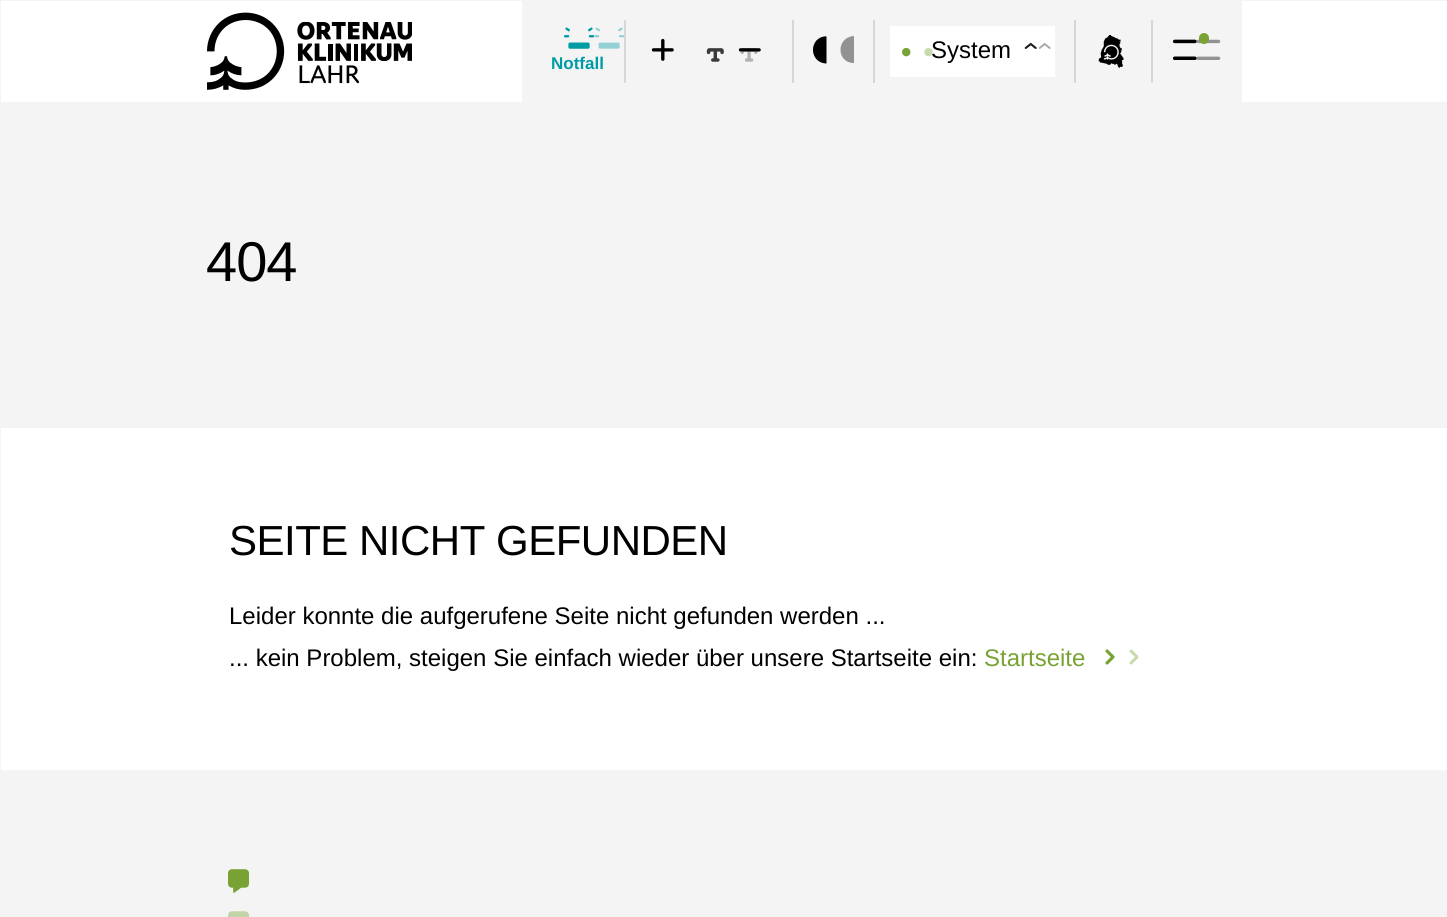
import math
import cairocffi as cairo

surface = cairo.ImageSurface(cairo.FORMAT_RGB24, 1447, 917)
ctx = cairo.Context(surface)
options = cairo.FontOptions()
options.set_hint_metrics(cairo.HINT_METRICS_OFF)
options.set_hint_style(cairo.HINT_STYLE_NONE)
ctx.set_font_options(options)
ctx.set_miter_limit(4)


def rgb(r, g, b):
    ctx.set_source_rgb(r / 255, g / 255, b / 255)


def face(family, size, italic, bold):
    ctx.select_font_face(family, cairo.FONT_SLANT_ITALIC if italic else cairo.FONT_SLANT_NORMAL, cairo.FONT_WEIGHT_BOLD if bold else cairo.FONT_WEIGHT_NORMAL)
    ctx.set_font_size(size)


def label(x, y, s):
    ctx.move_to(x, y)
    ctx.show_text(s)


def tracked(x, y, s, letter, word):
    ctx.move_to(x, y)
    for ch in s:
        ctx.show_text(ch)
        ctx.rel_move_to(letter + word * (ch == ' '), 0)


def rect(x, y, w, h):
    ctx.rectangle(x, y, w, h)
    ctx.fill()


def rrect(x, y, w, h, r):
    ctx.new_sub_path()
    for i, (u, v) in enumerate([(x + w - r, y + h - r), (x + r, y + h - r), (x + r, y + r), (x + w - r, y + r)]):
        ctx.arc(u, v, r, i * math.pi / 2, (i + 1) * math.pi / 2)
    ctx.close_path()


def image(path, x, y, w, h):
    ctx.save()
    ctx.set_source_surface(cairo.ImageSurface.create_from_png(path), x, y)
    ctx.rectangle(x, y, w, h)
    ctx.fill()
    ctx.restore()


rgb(255, 255, 255)
ctx.paint()
rgb(244, 244, 244)
rect(1, 102, 1446, 326)
image('image14.png', 1105, 649, 10, 16)
image('image15.png', 1105, 649, 34, 16)
rect(1, 770, 1446, 147)
image('image16.png', 228, 869, 21, 24)
image('image17.png', 228, 869, 21, 24)
image('image18.png', 228, 911, 21, 6)
ctx.rectangle(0, 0, 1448, 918)
ctx.stroke()
image('image0.png', 207, 12, 205, 78)
rect(522, 1, 720, 101)
image('image1.png', 564, 27, 31, 22)
image('image2.png', 564, 27, 61, 22)
face('Liberation Sans', 17, 0, 1)
rgb(0, 156, 166)
label(551, 69, 'Notfall')
ctx.set_source_rgba(0, 0, 0, 0.12)
rect(624, 20, 2, 63)
image('image3.png', 651, 38, 23, 23)
image('image4.png', 706, 48, 18, 14)
image('image6.png', 738, 48, 23, 4)
image('image5.png', 706, 48, 52, 14)
rgb(214, 214, 214)
rect(792, 20, 2, 63)
rgb(0, 0, 0)
ctx.new_path()
ctx.move_to(826.5, 36.5)
ctx.curve_to(808.5, 36.5, 808.5, 63, 826.5, 63.5)
ctx.close_path()
ctx.fill()
ctx.set_source_rgba(0, 0, 0, 0.4)
ctx.new_path()
ctx.move_to(826, 36)
ctx.curve_to(809, 37, 809, 63, 826, 63)
ctx.close_path()
ctx.move_to(854, 36)
ctx.curve_to(836, 37, 836, 63, 854, 63)
ctx.close_path()
ctx.fill()
rgb(214, 214, 214)
rect(873, 20, 2, 63)
rgb(255, 255, 255)
rect(890, 26, 165, 51)
face('Liberation Sans', 24, 0, 0)
rgb(0, 0, 0)
label(931, 58, 'System')
image('image7.png', 1024, 43, 13, 6)
image('image8.png', 1024, 43, 27, 6)
image('image9.png', 902, 47, 9, 10)
image('image10.png', 902, 48, 31, 9)
rgb(214, 214, 214)
rect(1074, 20, 2, 63)
image('image11.png', 1098, 35, 26, 33)
rect(1151, 20, 2, 63)
image('image12.png', 1173, 39, 24, 21)
image('image13.png', 1173, 39, 48, 21)
rgb(120, 163, 52)
rrect(1199, 33, 10, 11, 5)
ctx.fill()
face('Liberation Sans', 56, 0, 0)
rgb(0, 0, 0)
tracked(206, 281, '404', -1, 0)
face('Liberation Sans', 42, 0, 0)
tracked(229, 555, 'SEITE NICHT GEFUNDEN', -0.5, 0)
face('Liberation Sans', 24, 0, 0)
label(229, 624, 'Leider konnte die aufgerufene Seite nicht gefunden werden ...')
label(229, 666, '... kein Problem, steigen Sie einfach wieder über unsere Startseite ein:')
rgb(120, 163, 52)
label(984, 666, 'Startseite')
surface.write_to_png('render.png')
